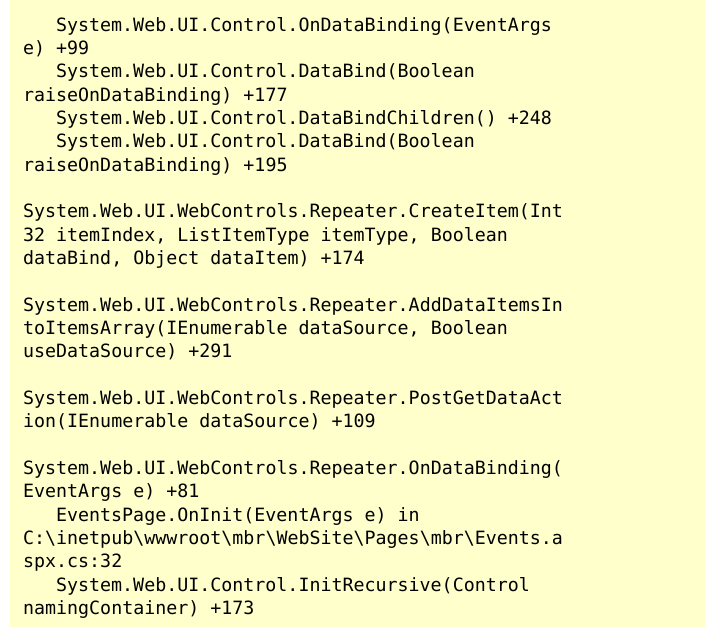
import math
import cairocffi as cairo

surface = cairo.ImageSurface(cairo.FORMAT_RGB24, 715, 627)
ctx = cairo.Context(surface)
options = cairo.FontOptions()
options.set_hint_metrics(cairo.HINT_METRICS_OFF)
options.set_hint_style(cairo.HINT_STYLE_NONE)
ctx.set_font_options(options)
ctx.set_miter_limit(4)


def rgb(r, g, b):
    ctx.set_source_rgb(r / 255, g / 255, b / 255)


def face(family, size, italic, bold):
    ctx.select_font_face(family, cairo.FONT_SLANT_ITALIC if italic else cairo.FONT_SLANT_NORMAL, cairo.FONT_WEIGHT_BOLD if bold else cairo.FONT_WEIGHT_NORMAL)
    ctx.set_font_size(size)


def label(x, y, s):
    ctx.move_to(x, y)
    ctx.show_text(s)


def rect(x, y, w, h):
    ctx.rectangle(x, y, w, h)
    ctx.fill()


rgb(255, 255, 255)
ctx.paint()
rgb(255, 255, 204)
rect(10, 0, 695, 627)
face('DejaVu Sans Mono', 18.3, 0, 0)
rgb(0, 0, 0)
label(56, 31, 'System.Web.UI.Control.OnDataBinding(EventArgs')
label(23, 54, 'e) +99')
label(56, 77, 'System.Web.UI.Control.DataBind(Boolean')
label(23, 101, 'raiseOnDataBinding) +177')
label(56, 124, 'System.Web.UI.Control.DataBindChildren() +248')
label(56, 147, 'System.Web.UI.Control.DataBind(Boolean')
label(23, 171, 'raiseOnDataBinding) +195')
label(23, 217, 'System.Web.UI.WebControls.Repeater.CreateItem(Int')
label(23, 241, '32 itemIndex, ListItemType itemType, Boolean')
label(23, 264, 'dataBind, Object dataItem) +174')
label(23, 311, 'System.Web.UI.WebControls.Repeater.AddDataItemsIn')
label(23, 334, 'toItemsArray(IEnumerable dataSource, Boolean')
label(23, 357, 'useDataSource) +291')
label(23, 404, 'System.Web.UI.WebControls.Repeater.PostGetDataAct')
label(23, 427, 'ion(IEnumerable dataSource) +109')
label(23, 474, 'System.Web.UI.WebControls.Repeater.OnDataBinding(')
label(23, 497, 'EventArgs e) +81')
label(56, 521, 'EventsPage.OnInit(EventArgs e) in')
label(23, 544, 'C:\\inetpub\\wwwroot\\mbr\\WebSite\\Pages\\mbr\\Events.a')
label(23, 567, 'spx.cs:32')
label(56, 591, 'System.Web.UI.Control.InitRecursive(Control')
label(23, 614, 'namingContainer) +173')
surface.write_to_png('render.png')
